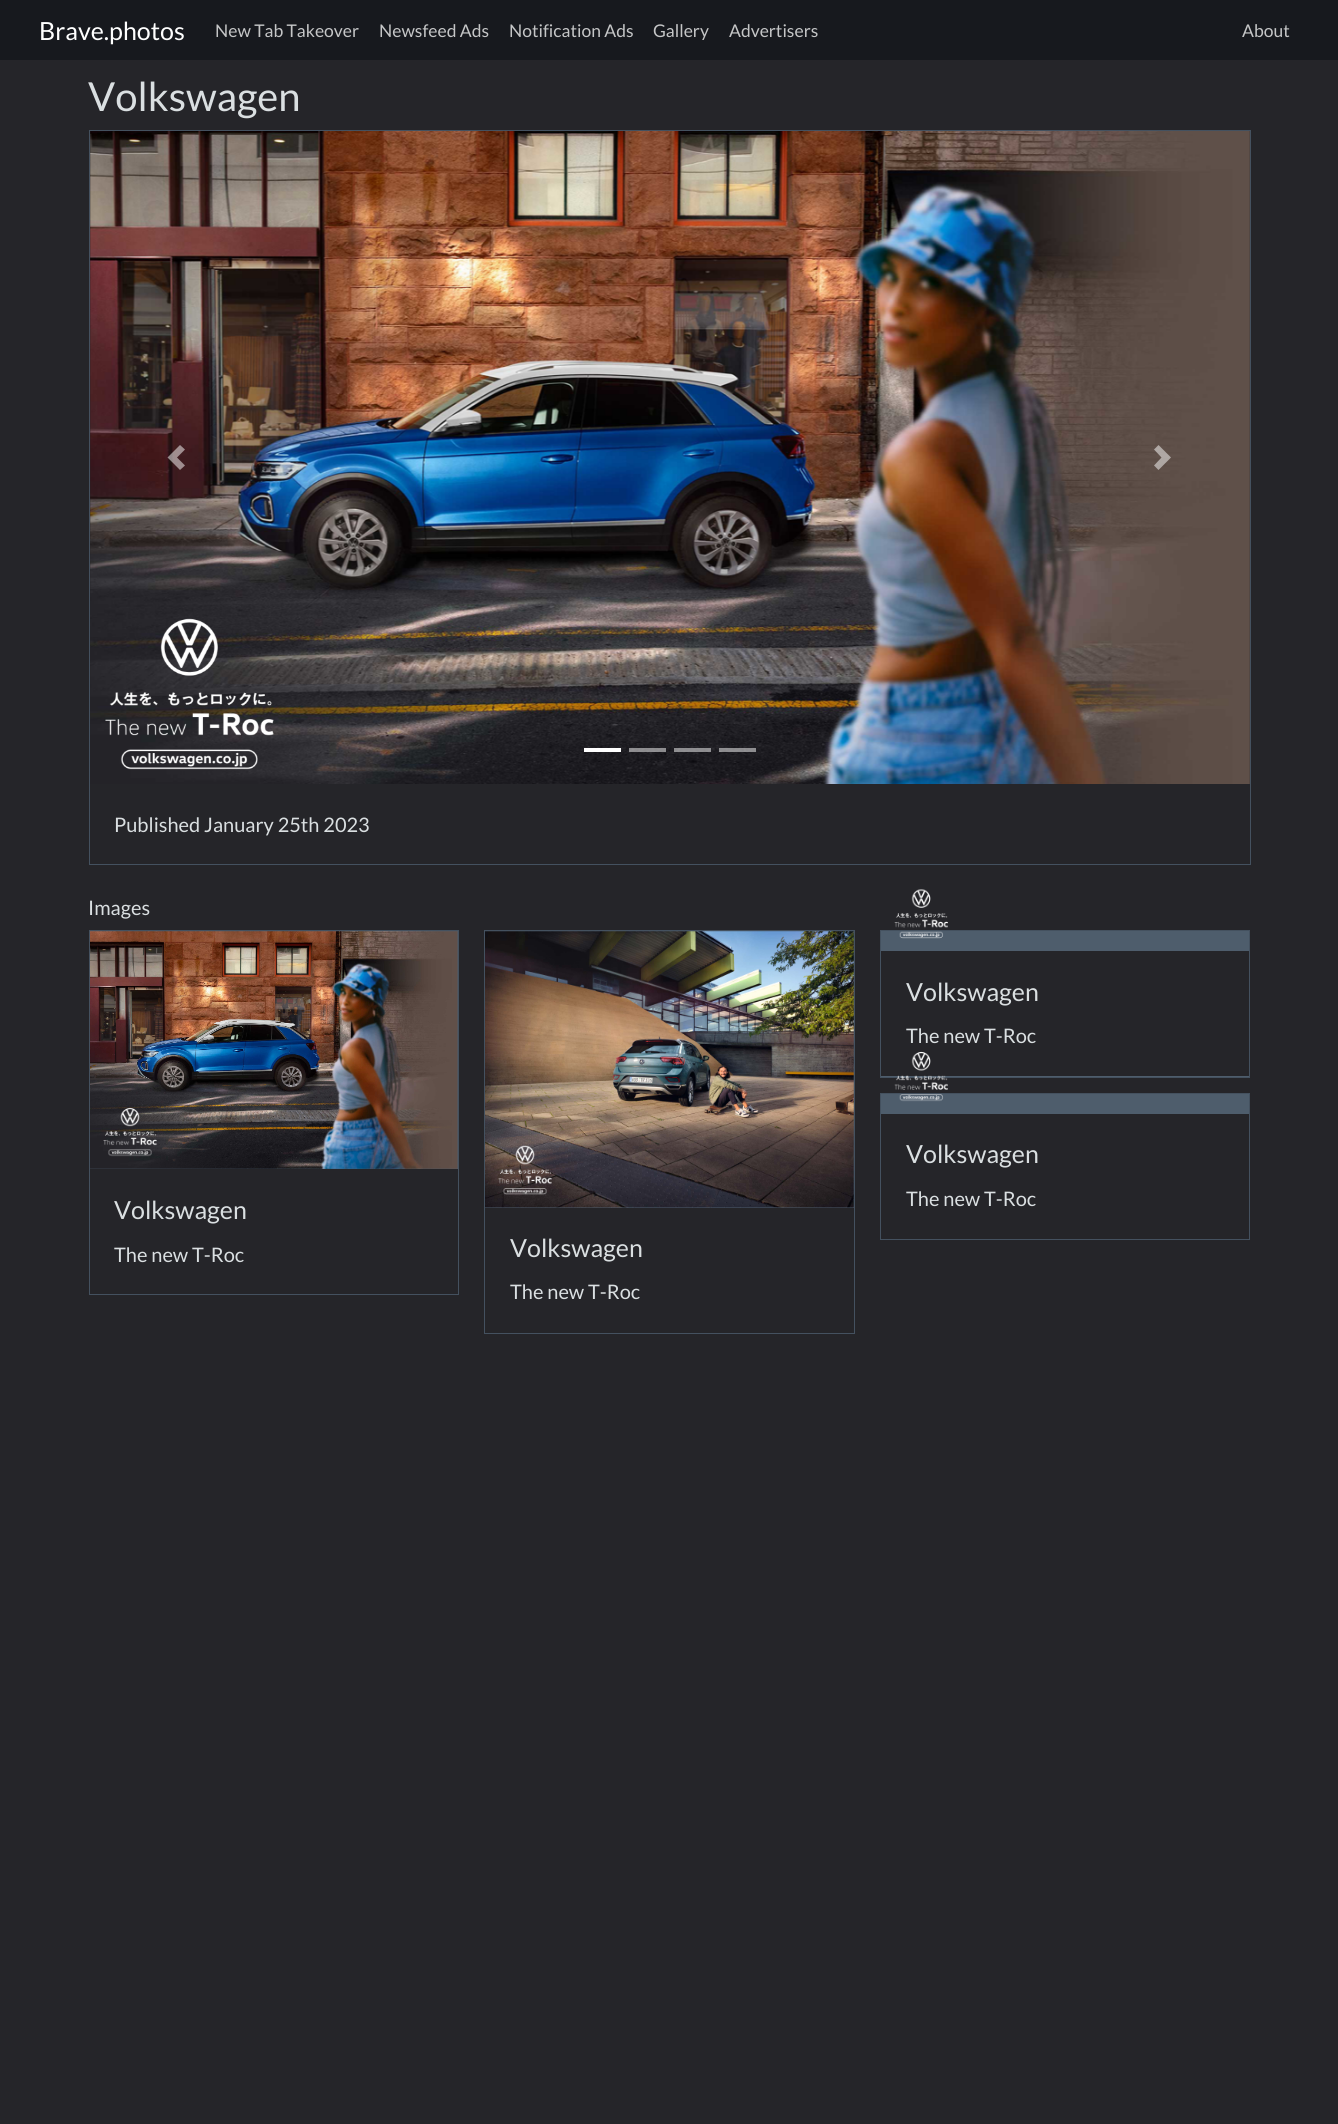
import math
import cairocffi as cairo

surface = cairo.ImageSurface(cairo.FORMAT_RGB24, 1338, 2124)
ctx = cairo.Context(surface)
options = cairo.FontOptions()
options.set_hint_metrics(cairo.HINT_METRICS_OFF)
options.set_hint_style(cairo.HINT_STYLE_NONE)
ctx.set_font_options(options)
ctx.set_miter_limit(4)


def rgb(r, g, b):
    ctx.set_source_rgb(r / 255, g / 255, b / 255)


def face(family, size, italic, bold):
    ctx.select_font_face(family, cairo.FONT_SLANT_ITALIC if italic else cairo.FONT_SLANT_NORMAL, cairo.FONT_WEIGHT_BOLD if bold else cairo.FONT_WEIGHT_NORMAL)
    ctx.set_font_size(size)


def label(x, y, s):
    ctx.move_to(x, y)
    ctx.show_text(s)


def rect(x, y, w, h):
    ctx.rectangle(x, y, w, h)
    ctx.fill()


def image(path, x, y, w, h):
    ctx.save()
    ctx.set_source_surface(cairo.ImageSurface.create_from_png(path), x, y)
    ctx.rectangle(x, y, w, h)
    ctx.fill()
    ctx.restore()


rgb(37, 37, 41)
ctx.paint()
rgb(23, 25, 30)
rect(0, 0, 1338, 60)
face('Lato', 25, 0, 0)
rgb(255, 255, 255)
label(39, 40, 'Brave.photos')
face('Lato', 17.5, 0, 0)
rgb(197, 198, 199)
label(215, 37, 'New Tab Takeover')
label(379, 37, 'Newsfeed Ads')
label(509, 37, 'Notification Ads')
label(653, 37, 'Gallery')
label(729, 37, 'Advertisers')
label(1242, 37, 'About')
face('Lato', 40, 0, 0)
rgb(218, 223, 225)
label(88, 111, 'Volkswagen')
ctx.rectangle(89.5, 130.5, 1161, 734)
rgb(68, 81, 95)
ctx.set_line_width(1)
ctx.stroke()
image('image0.png', 90, 131, 1160, 653)
image('image1.png', 105, 618, 169, 152)
ctx.set_source_rgba(1, 1, 1, 0.5)
ctx.new_path()
ctx.move_to(180, 445)
ctx.line_to(167.5, 457.5)
ctx.line_to(180, 470)
ctx.line_to(185, 465.5)
ctx.line_to(177, 457.5)
ctx.line_to(185, 449.5)
ctx.close_path()
ctx.fill()
ctx.new_path()
ctx.move_to(1158.5, 445)
ctx.line_to(1154, 449.5)
ctx.line_to(1161.5, 457.5)
ctx.line_to(1154, 465.5)
ctx.line_to(1158.5, 470)
ctx.line_to(1171, 457.5)
ctx.close_path()
ctx.fill()
rgb(255, 255, 255)
rect(584, 748, 37, 4)
ctx.set_source_rgba(1, 1, 1, 0.5)
rect(629, 748, 37, 4)
rect(674, 748, 37, 4)
rect(719, 748, 37, 4)
face('Lato', 20, 0, 0)
rgb(218, 223, 225)
label(114, 832, 'Published January 25th 2023')
label(88, 915, 'Images')
rgb(78, 93, 108)
ctx.rectangle(880.5, 930.5, 369, 147)
ctx.fill_preserve()
rgb(68, 81, 95)
ctx.stroke()
image('image2.png', 894, 889, 54, 50)
rgb(37, 37, 41)
rect(881, 951, 368, 125)
face('Lato', 25, 0, 0)
rgb(218, 223, 225)
label(906, 1001, 'Volkswagen')
face('Lato', 20, 0, 0)
label(906, 1043, 'The new T-Roc')
rgb(78, 93, 108)
rect(881, 1094, 368, 20)
ctx.rectangle(880.5, 1093.5, 369, 146)
rgb(68, 81, 95)
ctx.stroke()
image('image3.png', 894, 1051, 54, 51)
face('Lato', 25, 0, 0)
rgb(218, 223, 225)
label(906, 1163, 'Volkswagen')
face('Lato', 20, 0, 0)
label(906, 1206, 'The new T-Roc')
rgb(78, 93, 108)
rect(90, 931, 368, 238)
ctx.rectangle(89.5, 930.5, 369, 364)
rgb(68, 81, 95)
ctx.stroke()
image('image4.png', 90, 931, 368, 238)
image('image5.png', 103, 1107, 54, 50)
face('Lato', 25, 0, 0)
rgb(218, 223, 225)
label(114, 1219, 'Volkswagen')
face('Lato', 20, 0, 0)
label(114, 1262, 'The new T-Roc')
rgb(78, 93, 108)
rect(485, 931, 369, 277)
ctx.rectangle(484.5, 930.5, 370, 403)
rgb(68, 81, 95)
ctx.stroke()
image('image6.png', 485, 931, 369, 277)
image('image7.png', 498, 1145, 54, 50)
face('Lato', 25, 0, 0)
rgb(218, 223, 225)
label(510, 1257, 'Volkswagen')
face('Lato', 20, 0, 0)
label(510, 1299, 'The new T-Roc')
surface.write_to_png('render.png')
